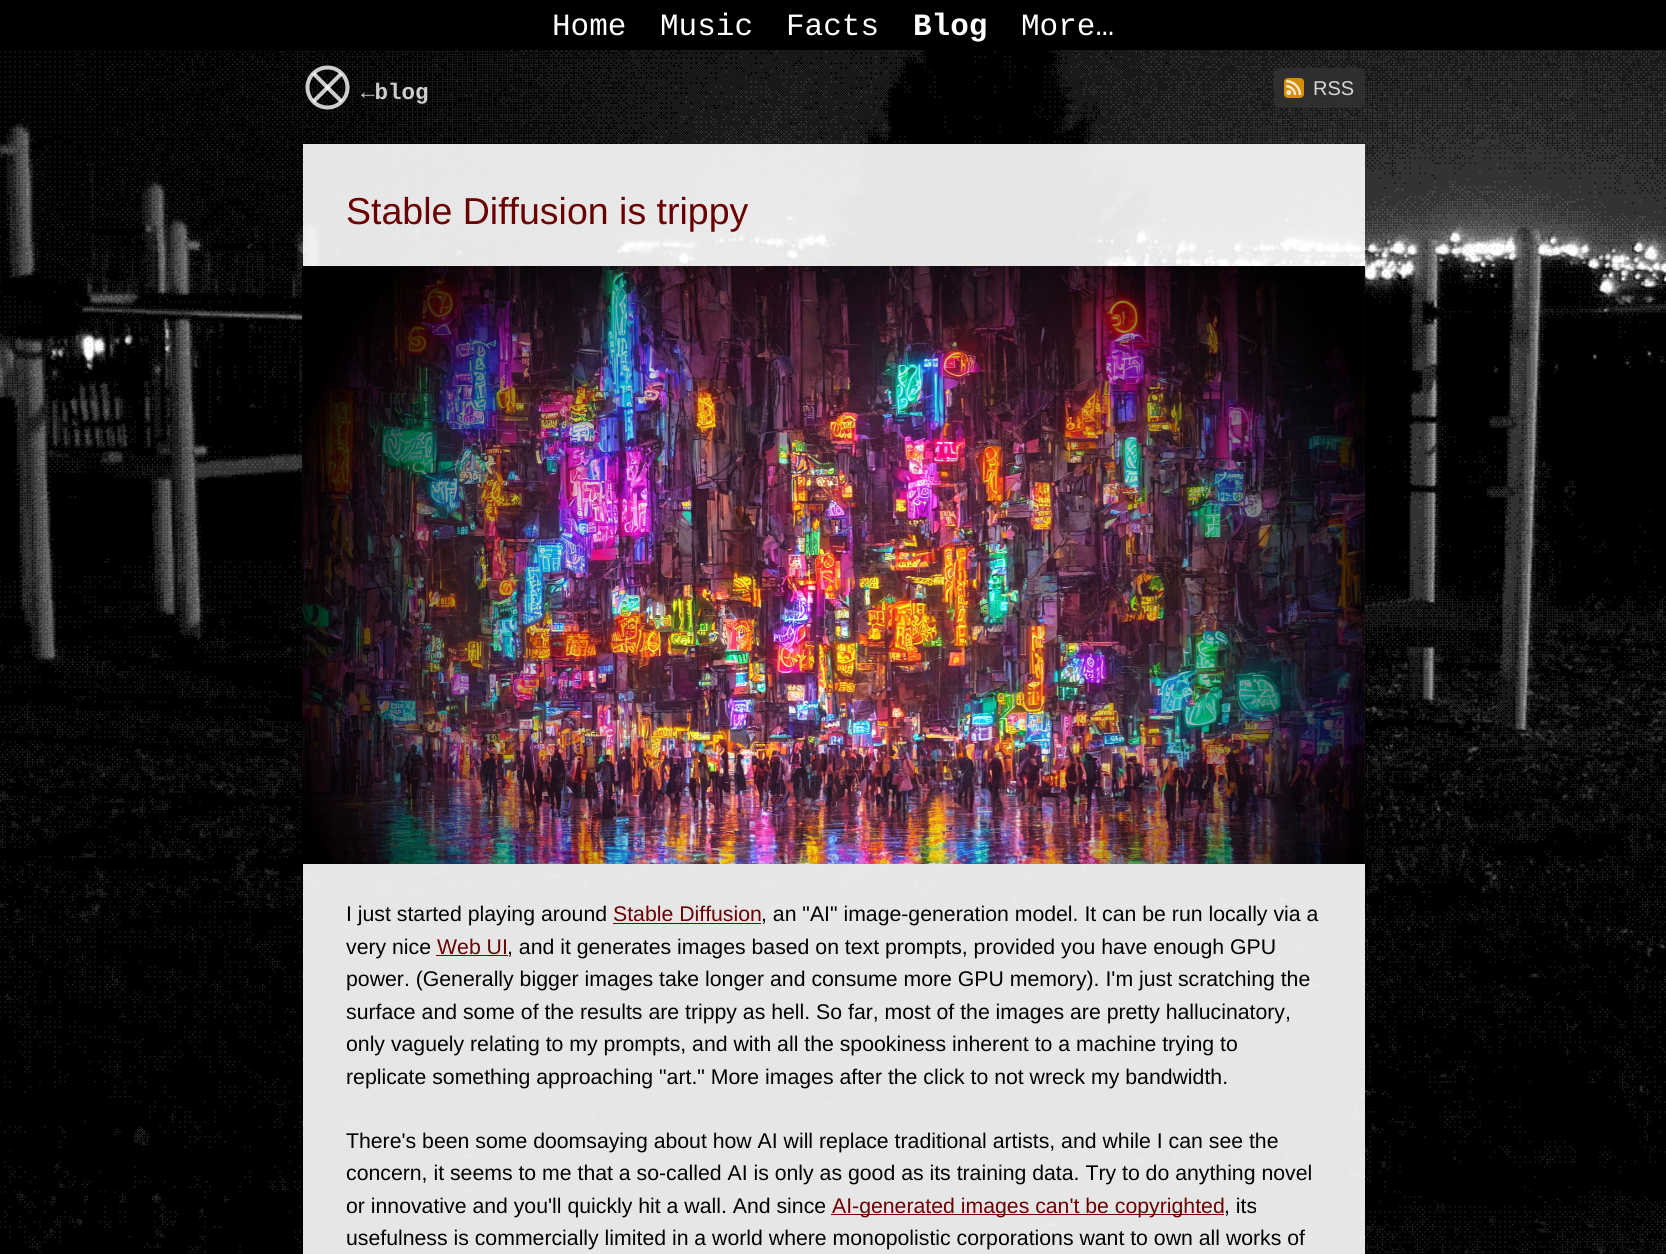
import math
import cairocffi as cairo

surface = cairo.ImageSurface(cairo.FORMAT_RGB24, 1666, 1254)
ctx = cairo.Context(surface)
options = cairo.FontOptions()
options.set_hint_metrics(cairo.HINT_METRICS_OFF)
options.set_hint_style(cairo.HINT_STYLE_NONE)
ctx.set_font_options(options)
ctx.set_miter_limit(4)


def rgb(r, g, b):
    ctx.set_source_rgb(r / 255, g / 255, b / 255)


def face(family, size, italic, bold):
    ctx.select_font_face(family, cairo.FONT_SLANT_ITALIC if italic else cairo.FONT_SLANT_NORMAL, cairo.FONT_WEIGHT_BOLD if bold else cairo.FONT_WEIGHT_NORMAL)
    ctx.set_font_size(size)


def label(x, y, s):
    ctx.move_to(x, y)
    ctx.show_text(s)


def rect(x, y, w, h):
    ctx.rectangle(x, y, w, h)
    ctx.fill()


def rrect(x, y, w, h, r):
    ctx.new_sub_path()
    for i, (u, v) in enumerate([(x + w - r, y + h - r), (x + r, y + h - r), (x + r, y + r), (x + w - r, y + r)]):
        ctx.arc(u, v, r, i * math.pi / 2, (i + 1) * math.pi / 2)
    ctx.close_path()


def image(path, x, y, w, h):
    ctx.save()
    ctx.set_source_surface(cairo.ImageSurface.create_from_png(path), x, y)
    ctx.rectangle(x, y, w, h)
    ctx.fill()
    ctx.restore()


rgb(255, 255, 255)
ctx.paint()
rgb(0, 0, 0)
rect(0, 0, 1666, 50)
face('Liberation Mono', 31, 0, 0)
rgb(255, 255, 255)
label(552, 35, 'Home')
label(660, 35, 'Music')
label(786, 35, 'Facts')
face('Liberation Mono', 31, 0, 1)
label(913, 35, 'Blog')
face('Liberation Mono', 31, 0, 0)
label(1021, 35, 'More…')
image('image0.png', 0, 50, 1666, 1204)
ctx.arc(327.5, 87.5, 20, 0, 2 * math.pi)
ctx.set_source_rgba(1, 1, 1, 0.8)
ctx.set_line_width(4)
ctx.stroke()
ctx.new_path()
ctx.move_to(313.5, 73.5)
ctx.line_to(341.5, 101.5)
ctx.stroke()
ctx.new_path()
ctx.move_to(313.5, 101.5)
ctx.line_to(341.5, 73.5)
ctx.stroke()
face('Liberation Mono', 22.5, 0, 1)
rgb(206, 206, 206)
label(361, 99, '←blog')
ctx.set_source_rgba(0.2, 0.2, 0.2, 0.8)
rrect(1274, 68, 91, 40, 6)
ctx.fill()
image('image1.png', 1284, 78, 20, 20)
face('Liberation Sans', 20, 0, 0)
rgb(214, 214, 214)
label(1313, 95, 'RSS')
ctx.set_source_rgba(1, 1, 1, 0.9)
rect(303, 144, 1062, 1110)
face('Liberation Sans', 37.5, 0, 0)
rgb(106, 0, 0)
label(346, 224, 'Stable Diffusion is trippy')
image('image2.png', 302, 266, 1063, 598)
face('Liberation Sans', 21.25, 0, 0)
rgb(0, 0, 0)
label(346, 921, 'I just started playing around')
rgb(106, 0, 0)
label(613, 921, 'Stable Diffusion')
rect(613, 923, 148, 1)
rgb(0, 0, 0)
label(761, 921, ', an "AI" image-generation model. It can be run locally via a')
label(346, 954, 'very nice')
rgb(106, 0, 0)
label(437, 954, 'Web UI')
rect(436, 955, 72, 1)
rgb(0, 0, 0)
label(507, 954, ', and it generates images based on text prompts, provided you have enough GPU')
label(346, 986, 'power. (Generally bigger images take longer and consume more GPU memory). I\'m just scratching the')
label(346, 1019, 'surface and some of the results are trippy as hell. So far, most of the images are pretty hallucinatory,')
label(346, 1051, 'only vaguely relating to my prompts, and with all the spookiness inherent to a machine trying to')
label(346, 1084, 'replicate something approaching "art." More images after the click to not wreck my bandwidth.')
label(346, 1148, 'There\'s been some doomsaying about how AI will replace traditional artists, and while I can see the')
label(346, 1180, 'concern, it seems to me that a so-called AI is only as good as its training data. Try to do anything novel')
label(346, 1213, 'or innovative and you\'ll quickly hit a wall. And since')
rgb(106, 0, 0)
rect(831, 1214, 393, 1)
label(832, 1213, 'AI-generated images can\'t be copyrighted')
rgb(0, 0, 0)
label(1224, 1213, ', its')
label(346, 1245, 'usefulness is commercially limited in a world where monopolistic corporations want to own all works of')
surface.write_to_png('render.png')
